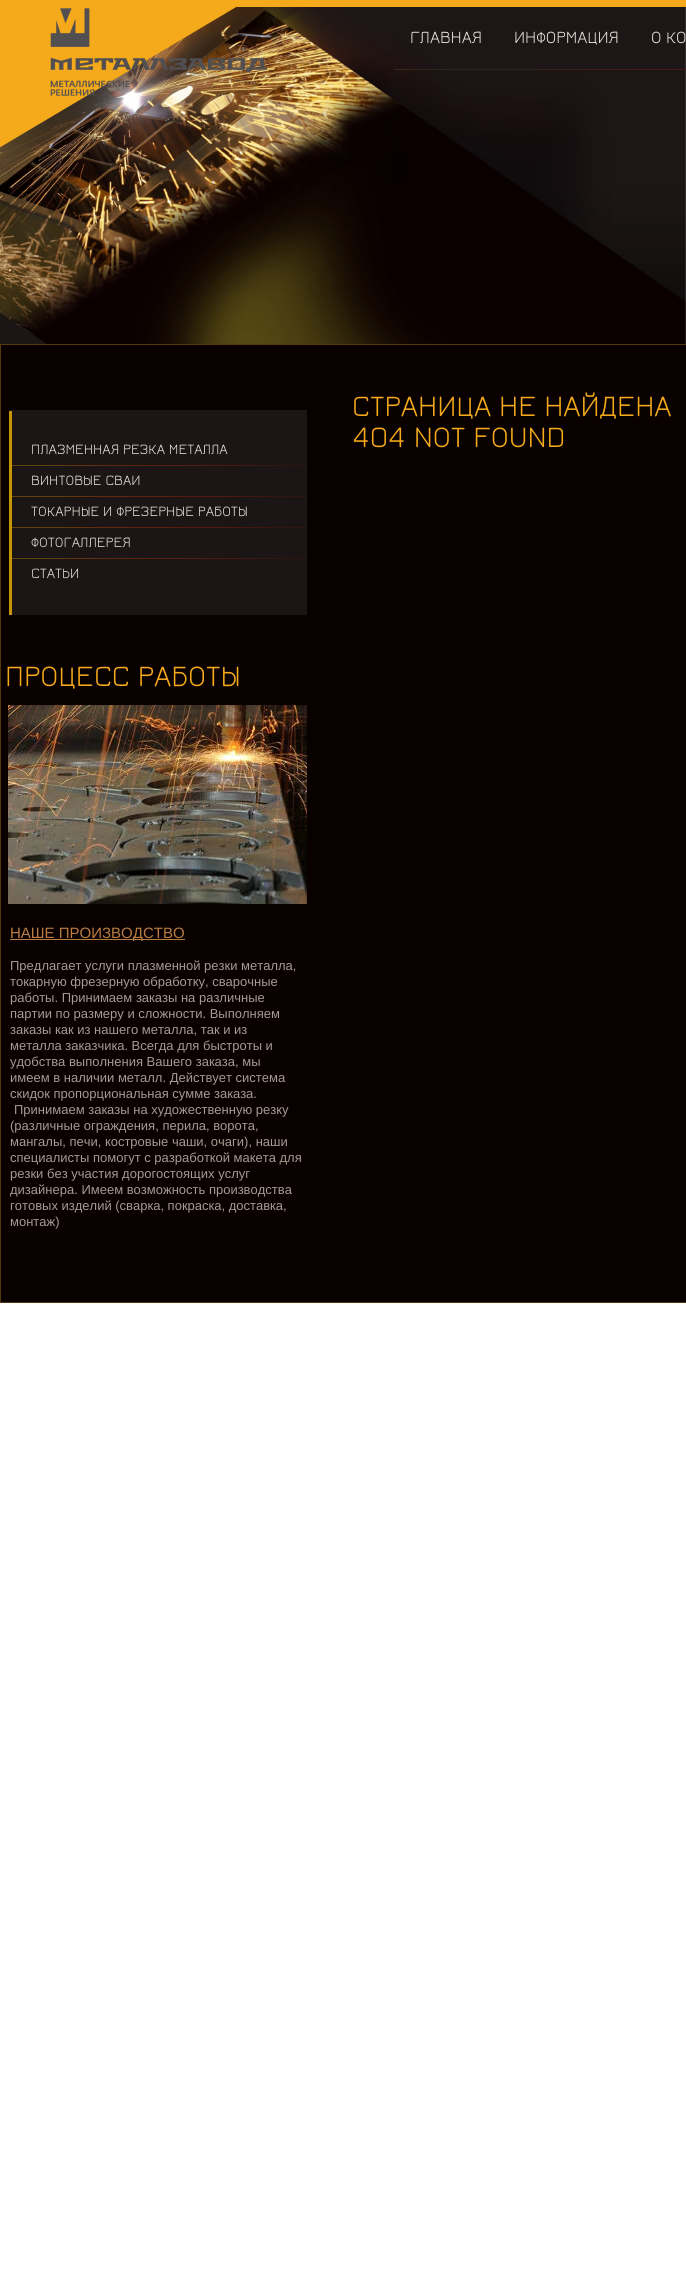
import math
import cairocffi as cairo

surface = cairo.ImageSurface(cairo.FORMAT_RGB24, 686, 2289)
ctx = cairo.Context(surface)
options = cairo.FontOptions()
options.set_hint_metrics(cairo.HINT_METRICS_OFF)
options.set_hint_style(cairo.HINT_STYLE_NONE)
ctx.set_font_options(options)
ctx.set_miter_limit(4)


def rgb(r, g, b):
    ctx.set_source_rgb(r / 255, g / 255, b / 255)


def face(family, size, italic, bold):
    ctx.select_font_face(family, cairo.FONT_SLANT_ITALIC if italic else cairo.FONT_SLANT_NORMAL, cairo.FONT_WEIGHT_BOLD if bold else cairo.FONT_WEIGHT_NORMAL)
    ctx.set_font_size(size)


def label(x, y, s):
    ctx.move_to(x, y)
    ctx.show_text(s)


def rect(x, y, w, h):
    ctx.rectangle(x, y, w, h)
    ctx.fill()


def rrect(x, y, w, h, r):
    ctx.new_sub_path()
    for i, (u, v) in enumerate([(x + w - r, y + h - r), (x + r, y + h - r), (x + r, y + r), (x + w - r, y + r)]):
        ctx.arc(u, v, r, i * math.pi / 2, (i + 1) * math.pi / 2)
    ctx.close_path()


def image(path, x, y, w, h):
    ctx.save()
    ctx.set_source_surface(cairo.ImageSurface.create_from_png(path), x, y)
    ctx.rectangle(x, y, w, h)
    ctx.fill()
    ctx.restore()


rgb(255, 255, 255)
ctx.paint()
image('image0.png', 0, 7, 686, 337)
image('image1.png', 0, 0, 686, 148)
image('image2.png', 50, 8, 218, 88)
image('image3.png', 394, 69, 292, 1)
face('Jura', 18, 0, 0)
rgb(236, 229, 219)
label(410, 43, 'ГЛАВНАЯ')
label(514, 43, 'ИНФОРМАЦИЯ')
label(651, 43, 'О КО')
rgb(9, 0, 0)
ctx.rectangle(0.5, 344.5, 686, 958)
ctx.fill_preserve()
rgb(87, 56, 13)
ctx.set_line_width(1)
ctx.stroke()
face('Jura', 31, 0, 0)
rgb(244, 170, 26)
label(352, 416, 'СТРАНИЦА НЕ НАЙДЕНА')
label(352, 447, '404 NOT FOUND')
rgb(28, 21, 21)
rrect(9, 410, 298, 205, 1)
ctx.fill()
rgb(198, 149, 5)
rect(9, 411, 3, 204)
face('Jura', 15, 0, 0)
rgb(236, 229, 219)
label(31, 454, 'ПЛАЗМЕННАЯ РЕЗКА МЕТАЛЛА')
image('image4.png', 12, 465, 294, 1)
label(31, 485, 'ВИНТОВЫЕ СВАИ')
image('image4.png', 12, 496, 294, 1)
label(31, 516, 'ТОКАРНЫЕ И ФРЕЗЕРНЫЕ РАБОТЫ')
image('image4.png', 12, 527, 294, 1)
label(31, 547, 'ФОТОГАЛЛЕРЕЯ')
image('image4.png', 12, 558, 294, 1)
label(31, 578, 'СТАТЬИ')
face('Jura', 31, 0, 0)
rgb(244, 170, 26)
label(5, 686, 'ПРОЦЕСС РАБОТЫ')
image('image5.png', 8, 705, 299, 199)
rgb(185, 125, 67)
rect(10, 939, 175, 1)
face('Liberation Sans', 15, 0, 0)
label(10, 938, 'НАШЕ ПРОИЗВОДСТВО')
face('Liberation Sans', 13, 0, 0)
rgb(165, 155, 146)
label(10, 970, 'Предлагает услуги плазменной резки металла,')
label(10, 986, 'токарную фрезерную обработку, сварочные')
label(10, 1002, 'работы. Принимаем заказы на различные')
label(10, 1018, 'партии по размеру и сложности. Выполняем')
label(10, 1034, 'заказы как из нашего металла, так и из')
label(10, 1050, 'металла заказчика. Всегда для быстроты и')
label(10, 1066, 'удобства выполнения Вашего заказа, мы')
label(10, 1082, 'имеем в наличии металл. Действует система')
label(10, 1098, 'скидок пропорциональная сумме заказа.')
label(14, 1114, 'Принимаем заказы на художественную резку')
label(10, 1130, '(различные ограждения, перила, ворота,')
label(10, 1146, 'мангалы, печи, костровые чаши, очаги), наши')
label(10, 1162, 'специалисты помогут с разработкой макета для')
label(10, 1178, 'резки без участия дорогостоящих услуг')
label(10, 1194, 'дизайнера. Имеем возможность производства')
label(10, 1210, 'готовых изделий (сварка, покраска, доставка,')
label(10, 1226, 'монтаж)')
surface.write_to_png('render.png')
